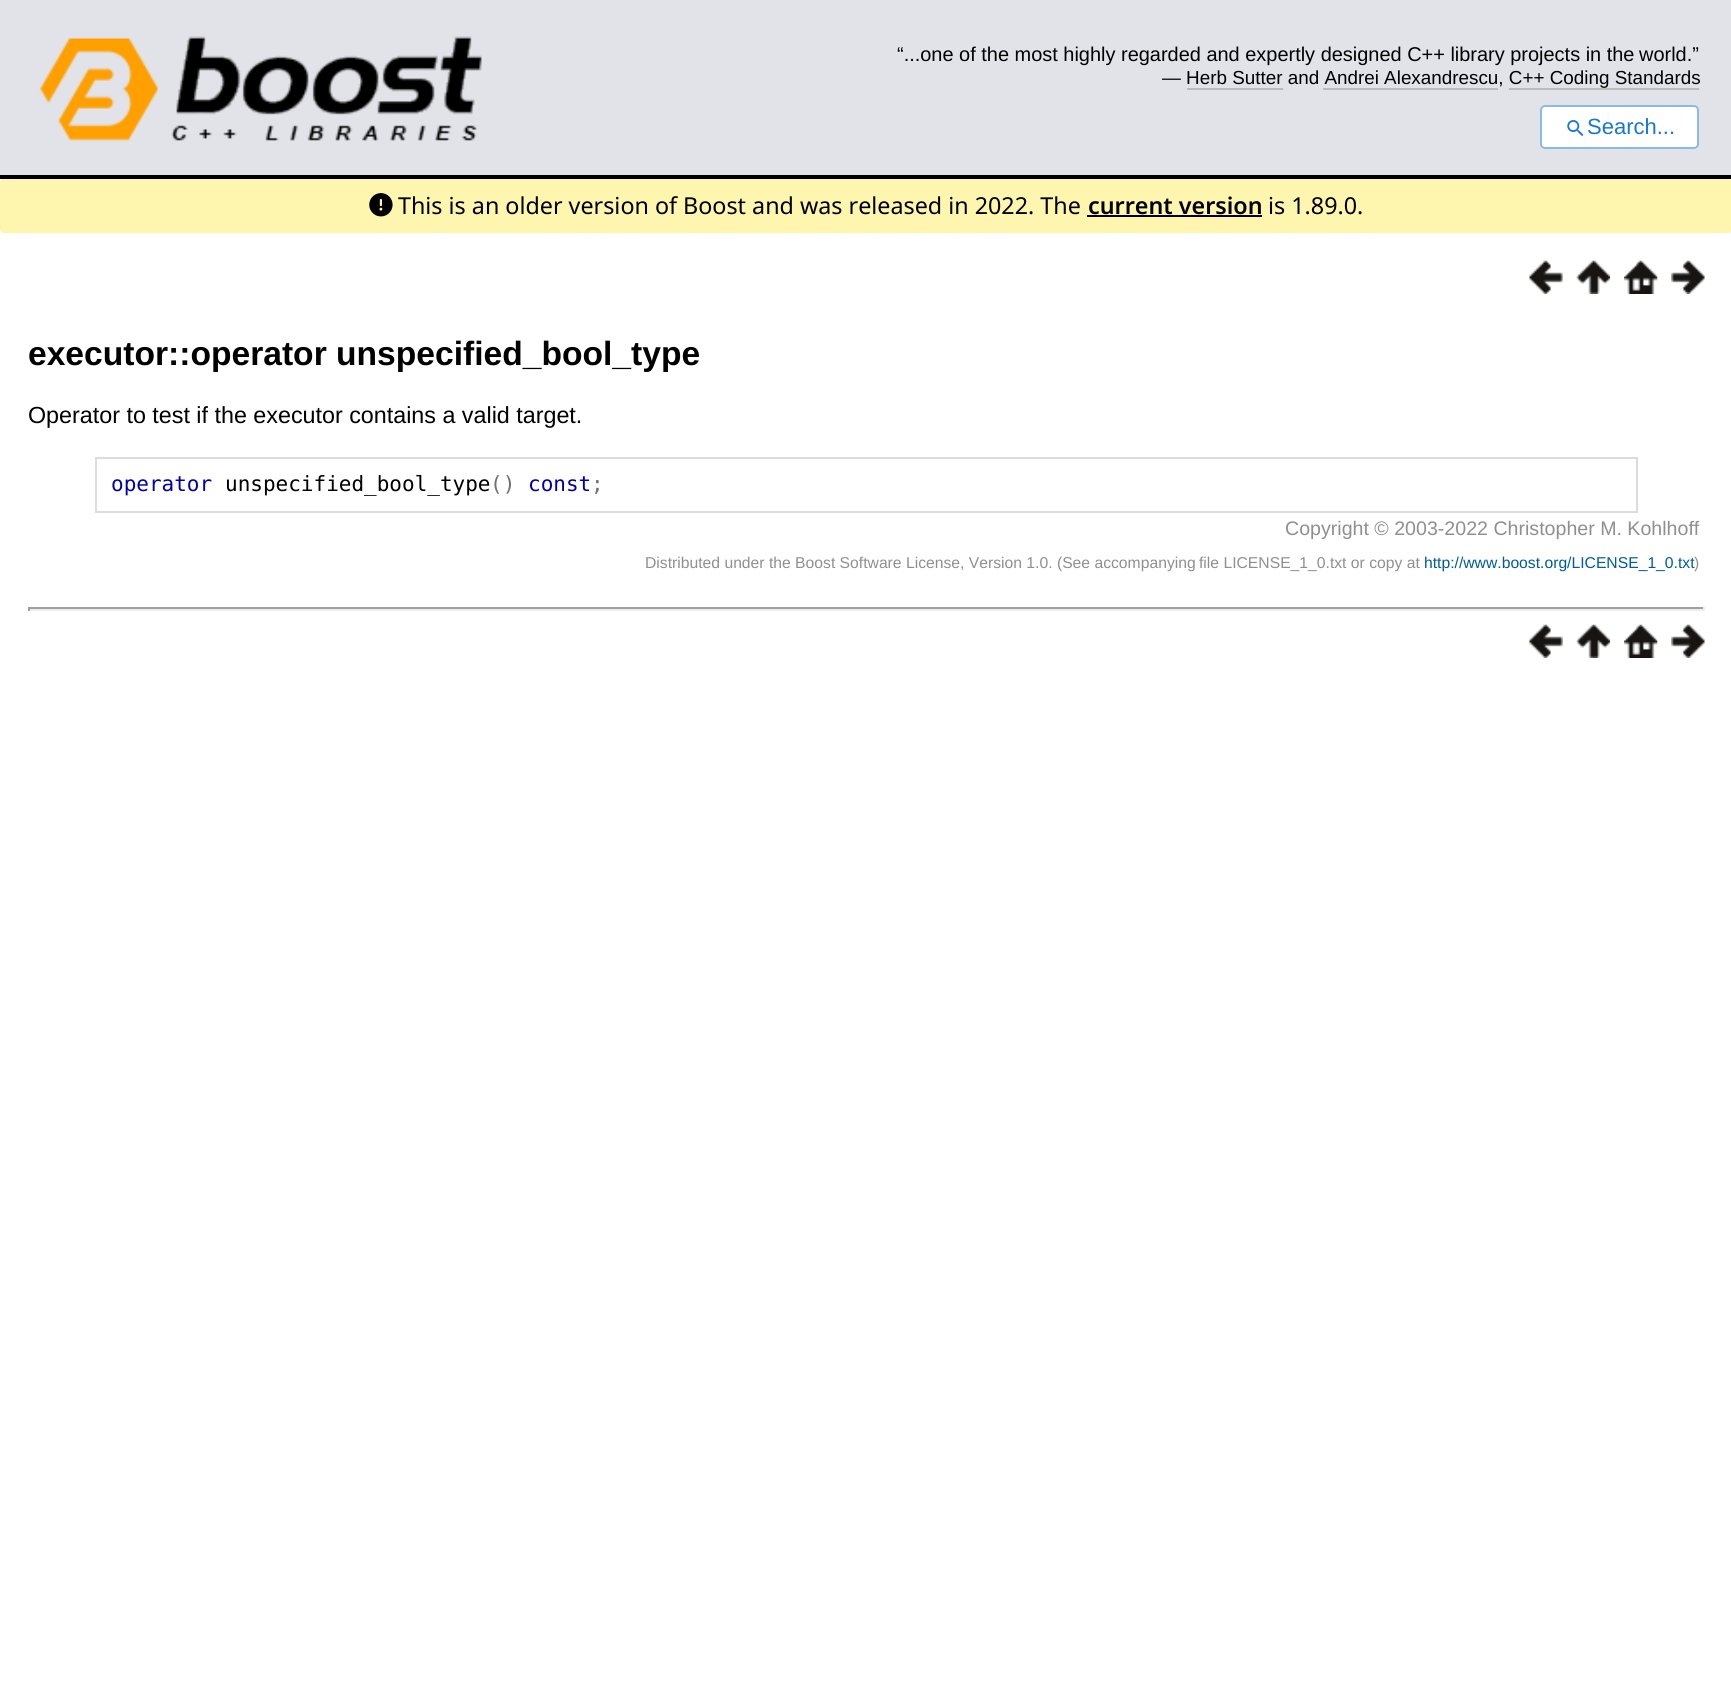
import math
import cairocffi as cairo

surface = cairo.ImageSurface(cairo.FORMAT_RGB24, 1731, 1705)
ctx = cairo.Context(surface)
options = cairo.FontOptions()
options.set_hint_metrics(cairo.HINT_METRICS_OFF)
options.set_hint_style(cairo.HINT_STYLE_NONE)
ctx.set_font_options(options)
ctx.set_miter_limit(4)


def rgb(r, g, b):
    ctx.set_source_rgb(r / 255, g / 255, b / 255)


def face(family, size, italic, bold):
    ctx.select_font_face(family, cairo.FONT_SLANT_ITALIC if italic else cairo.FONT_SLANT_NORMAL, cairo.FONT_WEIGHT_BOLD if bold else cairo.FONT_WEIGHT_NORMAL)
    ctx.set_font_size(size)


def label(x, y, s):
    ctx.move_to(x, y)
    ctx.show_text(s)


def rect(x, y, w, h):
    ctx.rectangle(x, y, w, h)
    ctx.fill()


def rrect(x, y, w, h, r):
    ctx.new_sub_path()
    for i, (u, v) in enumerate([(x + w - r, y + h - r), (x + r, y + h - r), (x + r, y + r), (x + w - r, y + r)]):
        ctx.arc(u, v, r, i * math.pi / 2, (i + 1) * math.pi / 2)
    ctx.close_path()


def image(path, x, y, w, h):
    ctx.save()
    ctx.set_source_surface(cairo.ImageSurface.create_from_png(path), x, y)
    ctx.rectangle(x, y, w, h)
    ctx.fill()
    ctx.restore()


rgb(255, 255, 255)
ctx.paint()
rgb(225, 227, 232)
rect(0, 0, 1731, 175)
rgb(0, 0, 0)
rect(0, 175, 1731, 4)
image('image0.png', 39, 36, 443, 105)
face('Liberation Sans', 19.95, 0, 0)
label(897, 61, '“...one of the most highly regarded and expertly designed C++ library projects in the')
label(1639, 61, 'world.”')
face('Liberation Sans', 18.85, 0, 0)
label(1162, 84, '— Herb Sutter and Andrei Alexandrescu, C++ Coding Standards')
rgb(187, 187, 187)
rect(1187, 88, 96, 2)
rect(1323, 88, 175, 2)
rect(1509, 88, 190, 2)
rgb(255, 255, 255)
rrect(1540, 105, 159, 44, 5)
ctx.fill()
rrect(1541, 106, 157, 42, 4)
ctx.set_source_rgba(0.098, 0.463, 0.824, 0.5)
ctx.stroke()
image('image1.png', 1567, 120, 17, 16)
face('Liberation Sans', 22, 0, 0)
rgb(25, 118, 210)
label(1587, 134, 'Search...')
rgb(254, 245, 174)
rrect(0, 179, 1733, 54, 4)
ctx.fill()
image('image2.png', 369, 193, 24, 24)
face('Noto Sans', 23.3, 0, 0)
rgb(0, 0, 0)
label(398, 214, 'This is an older version of Boost and was released in 2022. The')
face('Noto Sans SemiBold', 23.3, 0, 0)
label(1088, 214, 'current version')
rect(1087, 215, 175, 2)
face('Noto Sans', 23.3, 0, 0)
label(1268, 214, 'is 1.89.0.')
image('image3.png', 1529, 260, 34, 34)
image('image4.png', 1576, 260, 34, 34)
image('image5.png', 1624, 260, 34, 34)
image('image6.png', 1671, 260, 34, 34)
face('Liberation Sans', 33.6, 0, 1)
label(28, 365, 'executor::operator unspecified_bool_type')
face('Liberation Sans', 23.3, 0, 0)
label(28, 423, 'Operator to test if the executor contains a valid target.')
ctx.rectangle(96, 458, 1541, 54)
rgb(220, 220, 220)
ctx.stroke()
face('DejaVu Sans Mono', 21, 0, 0)
rgb(0, 0, 170)
label(111, 491, 'operator')
rgb(0, 0, 0)
label(225, 491, 'unspecified_bool_type')
rgb(112, 112, 112)
label(490, 491, '()')
rgb(0, 0, 170)
label(528, 491, 'const')
rgb(112, 112, 112)
label(591, 491, ';')
face('Liberation Sans', 19.6, 0, 0)
rgb(143, 143, 143)
label(1285, 535, 'Copyright © 2003-2022 Christopher M. Kohlhoff')
face('Liberation Sans', 15.7, 0, 0)
label(645, 568, 'Distributed under the Boost Software License, Version 1.0. (See accompanying')
label(1199, 568, 'file LICENSE_1_0.txt or copy at')
rgb(0, 90, 156)
label(1424, 568, 'http://www.boost.org/LICENSE_1_0.txt')
rgb(143, 143, 143)
label(1694, 568, ')')
rgb(159, 159, 159)
rect(28, 607, 1677, 2)
rgb(238, 238, 238)
rect(1703, 607, 2, 4)
rect(28, 609, 1677, 2)
rgb(159, 159, 159)
rect(28, 607, 2, 4)
image('image3.png', 1529, 624, 34, 34)
image('image4.png', 1576, 624, 34, 34)
image('image5.png', 1624, 624, 34, 34)
image('image6.png', 1671, 624, 34, 34)
surface.write_to_png('render.png')
